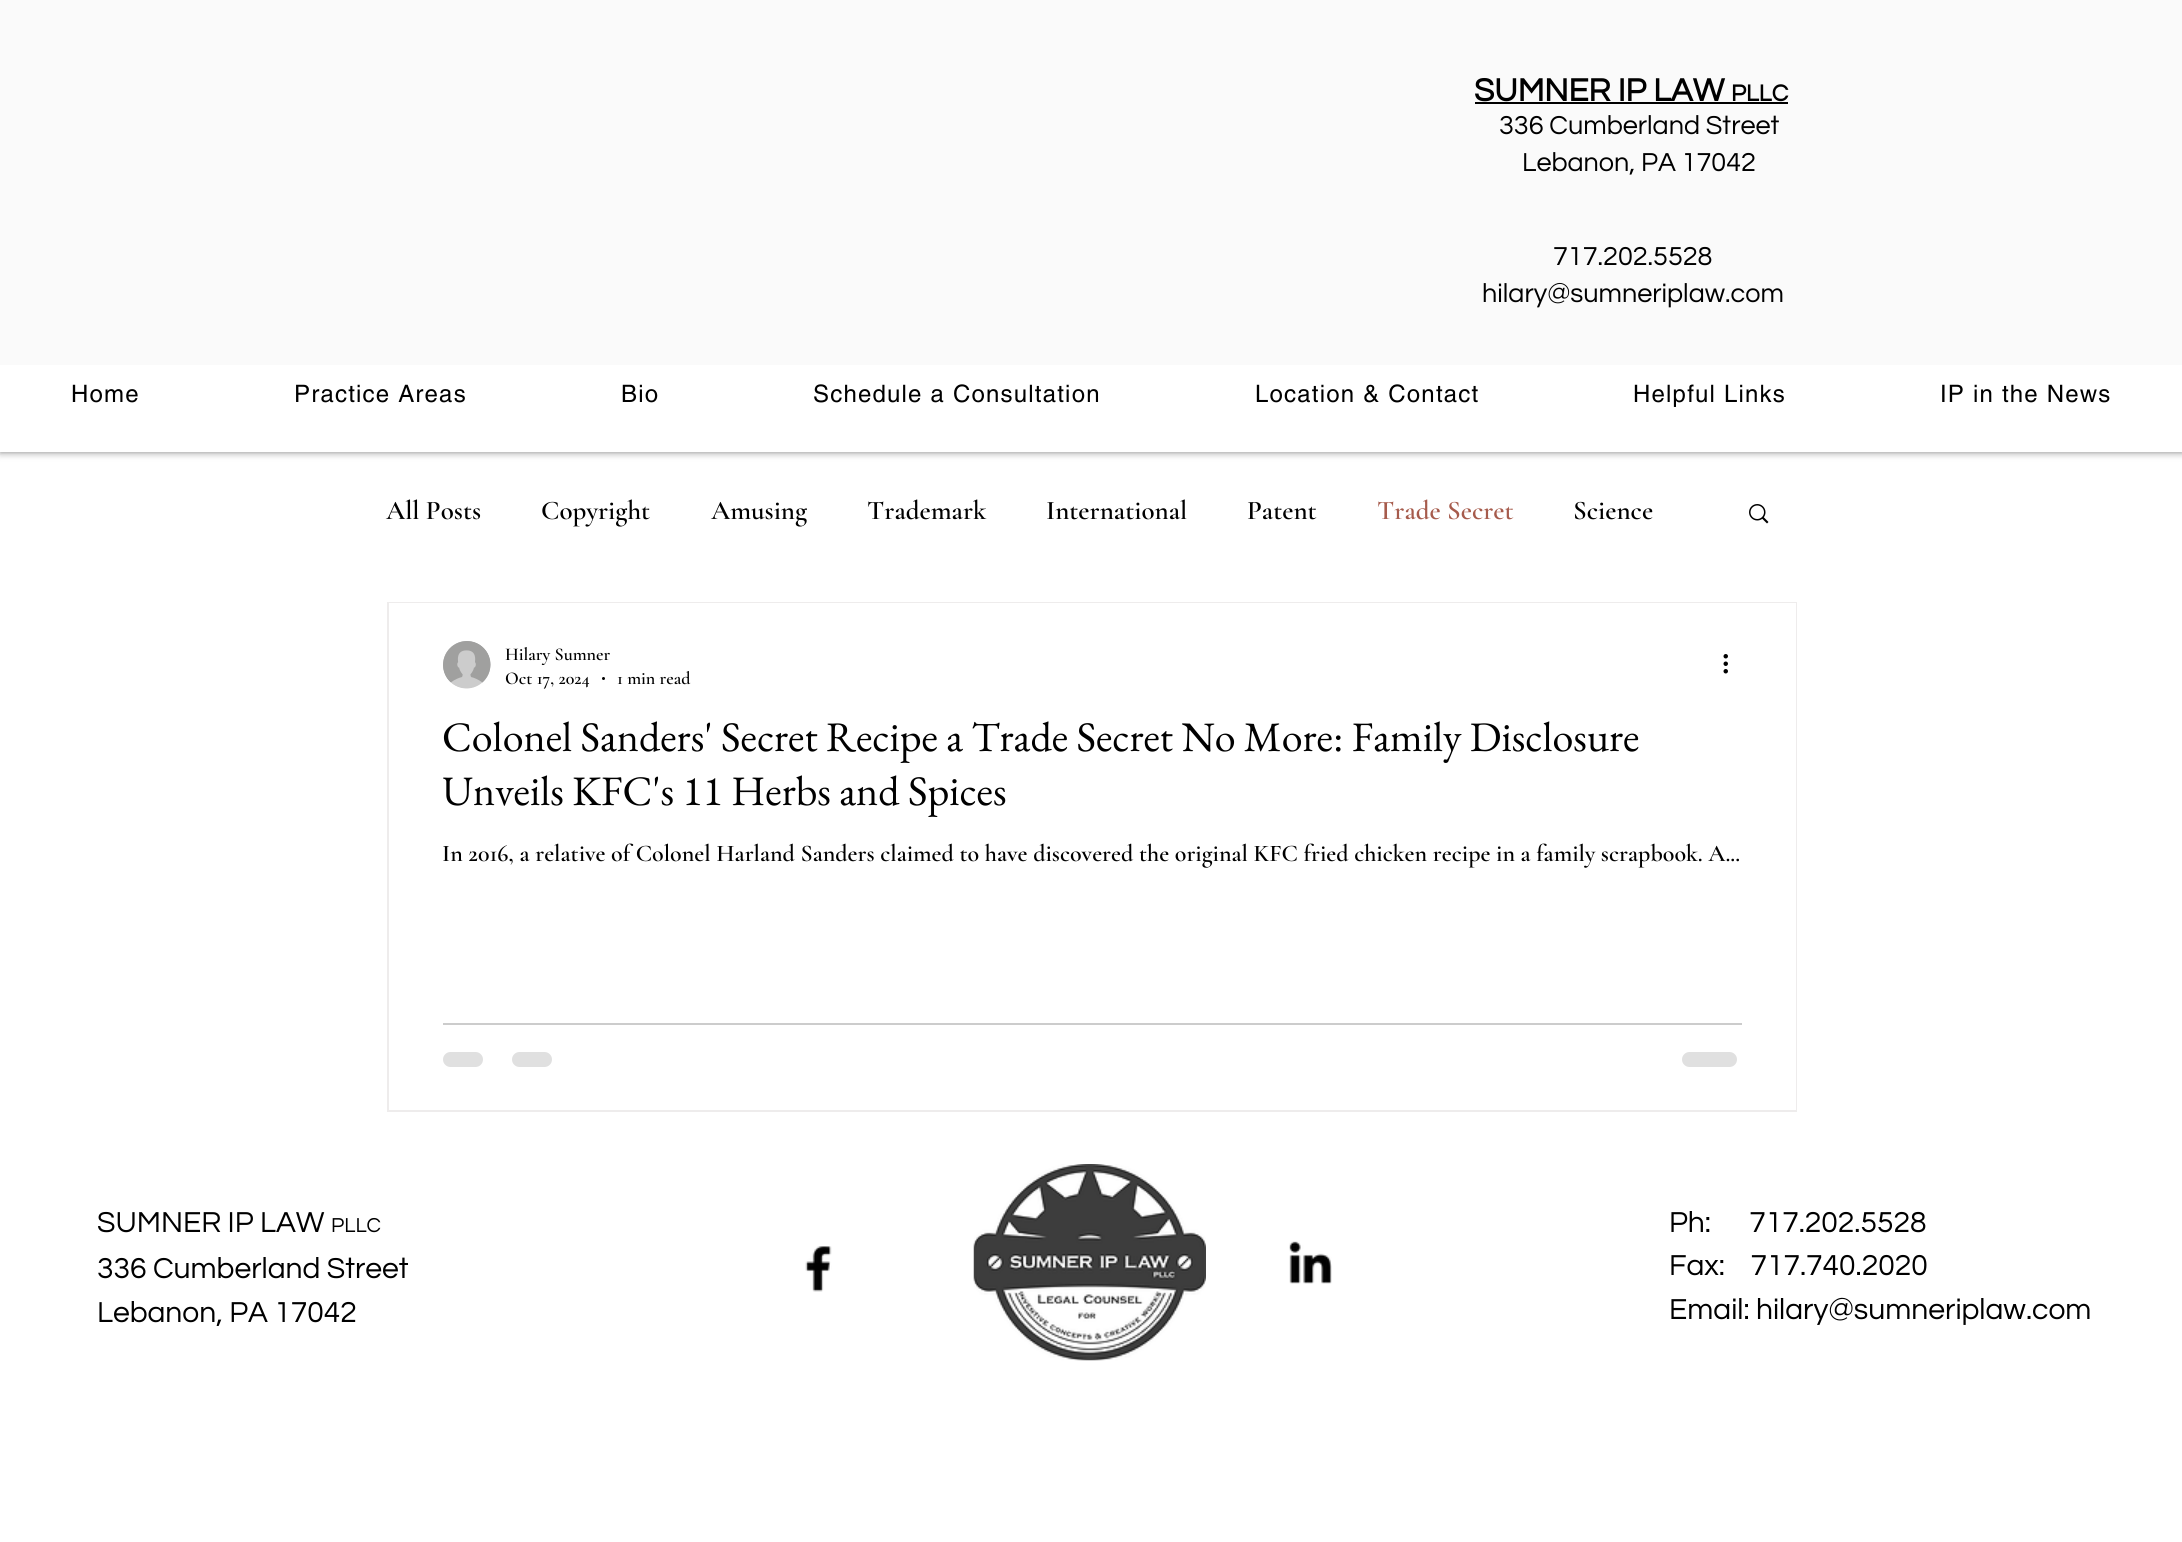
import math
import cairocffi as cairo

surface = cairo.ImageSurface(cairo.FORMAT_RGB24, 2182, 1542)
ctx = cairo.Context(surface)
options = cairo.FontOptions()
options.set_hint_metrics(cairo.HINT_METRICS_OFF)
options.set_hint_style(cairo.HINT_STYLE_NONE)
ctx.set_font_options(options)
ctx.set_miter_limit(4)


def rgb(r, g, b):
    ctx.set_source_rgb(r / 255, g / 255, b / 255)


def face(family, size, italic, bold):
    ctx.select_font_face(family, cairo.FONT_SLANT_ITALIC if italic else cairo.FONT_SLANT_NORMAL, cairo.FONT_WEIGHT_BOLD if bold else cairo.FONT_WEIGHT_NORMAL)
    ctx.set_font_size(size)


def label(x, y, s):
    ctx.move_to(x, y)
    ctx.show_text(s)


def tracked(x, y, s, letter, word):
    ctx.move_to(x, y)
    for ch in s:
        ctx.show_text(ch)
        ctx.rel_move_to(letter + word * (ch == ' '), 0)


def rect(x, y, w, h):
    ctx.rectangle(x, y, w, h)
    ctx.fill()


def rrect(x, y, w, h, r):
    ctx.new_sub_path()
    for i, (u, v) in enumerate([(x + w - r, y + h - r), (x + r, y + h - r), (x + r, y + r), (x + w - r, y + r)]):
        ctx.arc(u, v, r, i * math.pi / 2, (i + 1) * math.pi / 2)
    ctx.close_path()


def soft_shadow(x, y, w, h, r, blur, alpha):
    ctx.push_group_with_content(cairo.CONTENT_ALPHA)
    ctx.set_operator(cairo.OPERATOR_SOURCE)
    for i in range(15, -16, -2):
        e = blur * i / 6
        if min(w, h) + 2 * e > 0:
            ctx.set_source_rgba(0, 0, 0, alpha * math.erfc((i - 1) / 8.5) / 2)
            rrect(x - e, y - e, w + 2 * e, h + 2 * e, max(0, min(r + e + blur * .6, min(w, h) / 2 + e)))
            ctx.fill()
    ctx.mask(ctx.pop_group())


def image(path, x, y, w, h):
    ctx.save()
    ctx.set_source_surface(cairo.ImageSurface.create_from_png(path), x, y)
    ctx.rectangle(x, y, w, h)
    ctx.fill()
    ctx.restore()


rgb(255, 255, 255)
ctx.paint()
rgb(0, 0, 0)
soft_shadow(0, 0, 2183, 452, 0, 4, 0.5)
rgb(255, 255, 255)
rect(0, 365, 2182, 87)
rgb(250, 250, 250)
rect(0, 0, 2182, 365)
face('Questrial', 33, 0, 1)
rgb(0, 0, 0)
label(1474, 101, 'SUMNER IP LAW')
face('Questrial', 24, 0, 1)
label(1731, 101, 'PLLC')
rect(1475, 102, 313, 2)
face('Questrial', 27, 0, 0)
label(1499, 134, '336 Cumberland Street')
label(1522, 171, 'Lebanon, PA 17042')
label(1553, 265, '717.202.5528')
label(1482, 302, 'hilary@sumneriplaw.com')
face('helvetica', 24, 0, 0)
tracked(71, 402, 'Home', 1.2, 0)
tracked(294, 402, 'Practice Areas', 1.2, 0)
tracked(621, 402, 'Bio', 1.2, 0)
tracked(813, 402, 'Schedule a Consultation', 1.2, 0)
tracked(1255, 402, 'Location & Contact', 1.2, 0)
tracked(1633, 402, 'Helpful Links', 1.2, 0)
tracked(1940, 402, 'IP in the News', 1.2, 0)
face('Cormorant Garamond SemiBold', 27, 0, 0)
label(386, 519, 'All Posts')
label(541, 519, 'Copyright')
label(711, 519, 'Amusing')
label(867, 519, 'Trademark')
label(1046, 519, 'International')
label(1247, 519, 'Patent')
rgb(166, 91, 76)
label(1377, 519, 'Trade Secret')
rgb(0, 0, 0)
label(1573, 519, 'Science')
image('image0.png', 1749, 504, 20, 20)
ctx.rectangle(388, 603, 1408, 508)
rgb(238, 236, 236)
ctx.stroke()
rgb(255, 255, 255)
rect(389, 603, 1407, 507)
image('image1.png', 443, 641, 48, 48)
face('Cormorant Garamond SemiBold', 18, 0, 0)
rgb(0, 0, 0)
label(505, 660, 'Hilary Sumner')
label(505, 684, 'Oct 17, 2024')
ctx.new_path()
ctx.arc(603.5, 678.5, 1.5, 0, 2 * math.pi)
ctx.fill()
label(617, 684, '1 min read')
image('image2.png', 1723, 654, 5, 20)
face('EB Garamond', 42, 0, 0)
label(442, 751, 'Colonel Sanders\' Secret Recipe a Trade Secret No More: Family Disclosure')
label(442, 805, 'Unveils KFC\'s 11 Herbs and Spices')
face('Cormorant Garamond SemiBold', 24, 0, 0)
label(442, 861, 'In 2016, a relative of Colonel Harland Sanders claimed to have discovered the original KFC fried chicken recipe in a family scrapbook. A...')
rgb(204, 204, 204)
rect(443, 1023, 1299, 2)
rgb(224, 224, 224)
rrect(443, 1052, 40, 15, 7.5)
ctx.fill()
rrect(512, 1052, 40, 15, 7.5)
ctx.fill()
rrect(1682, 1052, 55, 15, 7.5)
ctx.fill()
face('Questrial', 30, 0, 0)
rgb(0, 0, 0)
label(97, 1232, 'SUMNER IP LAW')
face('Questrial', 21, 0, 0)
label(331, 1232, 'PLLC')
face('Questrial', 30, 0, 0)
label(97, 1278, '336 Cumberland Street')
label(97, 1322, 'Lebanon, PA 17042')
image('image3.png', 805, 1246, 27, 46)
image('image4.png', 973, 1164, 233, 197)
image('image5.png', 1289, 1241, 43, 43)
label(1669, 1232, 'Ph:      717.202.5528')
label(1669, 1275, 'Fax:    717.740.2020')
label(1669, 1319, 'Email: hilary@sumneriplaw.com')
surface.write_to_png('render.png')
